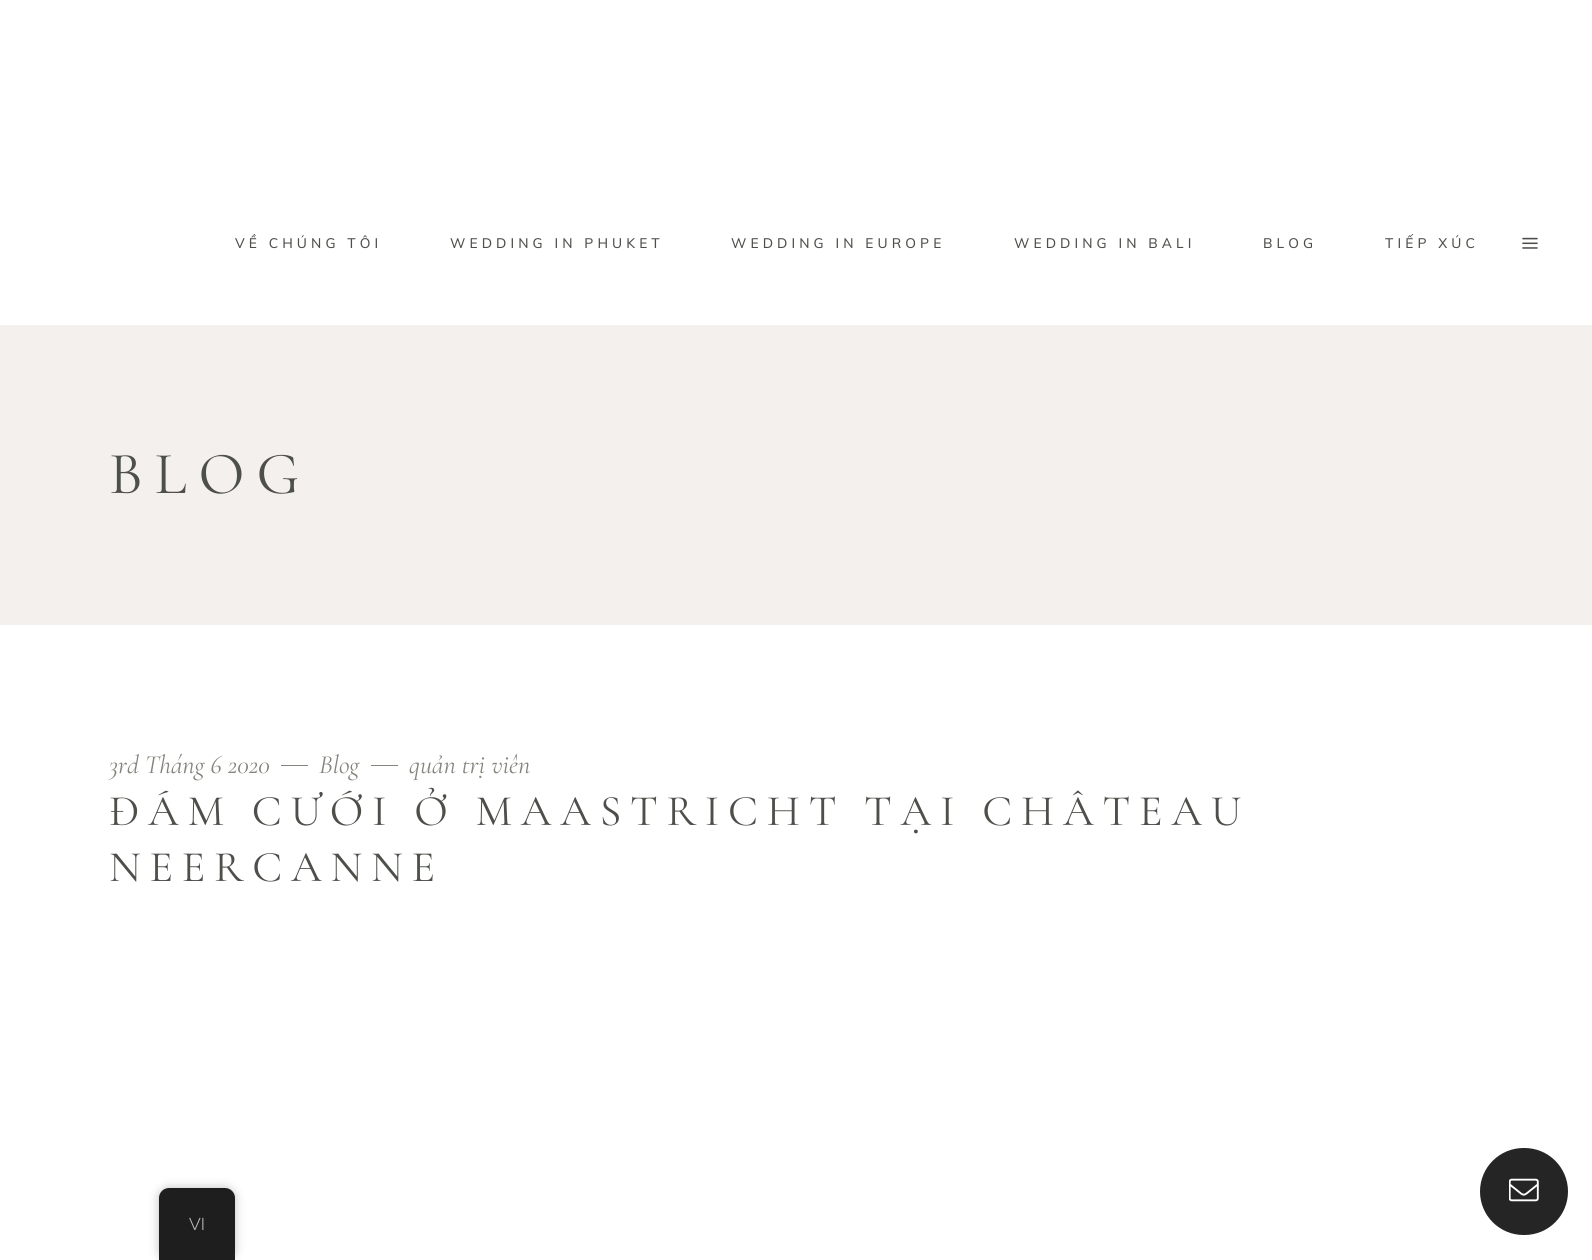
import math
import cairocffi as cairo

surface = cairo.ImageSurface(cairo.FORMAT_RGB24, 1592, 1260)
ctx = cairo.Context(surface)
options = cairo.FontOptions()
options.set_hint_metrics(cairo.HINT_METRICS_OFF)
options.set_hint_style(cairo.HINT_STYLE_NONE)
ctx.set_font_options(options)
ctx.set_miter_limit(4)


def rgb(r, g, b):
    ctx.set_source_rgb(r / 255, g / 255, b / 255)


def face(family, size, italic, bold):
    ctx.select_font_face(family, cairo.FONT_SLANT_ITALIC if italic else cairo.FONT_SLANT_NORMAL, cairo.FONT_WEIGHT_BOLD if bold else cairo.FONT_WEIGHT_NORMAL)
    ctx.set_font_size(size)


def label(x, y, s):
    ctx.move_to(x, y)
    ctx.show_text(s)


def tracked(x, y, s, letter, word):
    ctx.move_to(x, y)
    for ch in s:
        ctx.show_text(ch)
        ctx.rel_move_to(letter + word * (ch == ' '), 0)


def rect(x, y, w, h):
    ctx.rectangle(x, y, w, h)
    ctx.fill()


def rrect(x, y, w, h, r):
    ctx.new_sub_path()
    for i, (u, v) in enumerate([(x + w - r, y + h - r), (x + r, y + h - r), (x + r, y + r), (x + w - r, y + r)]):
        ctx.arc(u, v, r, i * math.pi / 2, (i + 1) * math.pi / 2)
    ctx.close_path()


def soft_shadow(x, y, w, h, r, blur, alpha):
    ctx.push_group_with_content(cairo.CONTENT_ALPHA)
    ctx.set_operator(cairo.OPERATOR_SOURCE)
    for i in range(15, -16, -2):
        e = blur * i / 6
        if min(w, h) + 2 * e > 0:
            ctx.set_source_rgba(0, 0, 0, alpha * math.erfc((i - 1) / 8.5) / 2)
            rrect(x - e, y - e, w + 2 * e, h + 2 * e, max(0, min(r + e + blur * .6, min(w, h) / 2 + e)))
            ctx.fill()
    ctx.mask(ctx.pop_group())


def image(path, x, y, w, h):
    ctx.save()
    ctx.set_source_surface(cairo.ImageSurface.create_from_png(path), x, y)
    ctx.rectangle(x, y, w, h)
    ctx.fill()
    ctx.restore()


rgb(255, 255, 255)
ctx.paint()
face('Muli Medium', 13.75, 0, 0)
rgb(77, 80, 74)
tracked(235, 248, 'VỀ CHÚNG TÔI', 4.1, 0)
tracked(450, 248, 'WEDDING IN PHUKET', 4.1, 0)
tracked(731, 248, 'WEDDING IN EUROPE', 4.1, 0)
tracked(1014, 248, 'WEDDING IN BALI', 4.1, 0)
tracked(1263, 248, 'BLOG', 4.1, 0)
tracked(1385, 248, 'TIẾP XÚC', 4.1, 0)
image('image0.png', 1522, 237, 16, 12)
rgb(244, 240, 237)
rect(0, 325, 1592, 300)
face('Cormorant Garamond', 60, 0, 0)
rgb(77, 80, 74)
tracked(109, 493, 'BLOG', 12, 0)
face('Cormorant Garamond', 26.25, 1, 0)
rgb(132, 132, 124)
label(109, 773, '3rd Tháng 6 2020')
rect(281, 765, 27, 1)
label(319, 773, 'Blog')
rect(371, 765, 27, 1)
label(409, 773, 'quản trị viên')
face('Cormorant Garamond', 43.75, 0, 0)
rgb(77, 80, 74)
tracked(109, 825, 'ĐÁM CƯỚI Ở MAASTRICHT TẠI CHÂTEAU', 8.75, 0)
tracked(109, 881, 'NEERCANNE', 8.75, 0)
rgb(0, 0, 0)
soft_shadow(159, 1188, 76, 72, 10, 5, 0.25)
rgb(30, 30, 30)
ctx.new_path()
ctx.move_to(169, 1188)
ctx.line_to(225, 1188)
ctx.curve_to(230.5, 1188, 235, 1192.5, 235, 1198)
ctx.line_to(235, 1260)
ctx.line_to(159, 1260)
ctx.line_to(159, 1198)
ctx.curve_to(159, 1192.5, 163.5, 1188, 169, 1188)
ctx.close_path()
ctx.fill()
face('Muli Light', 17, 0, 0)
rgb(189, 189, 189)
label(189, 1230, 'VI')
rgb(37, 37, 37)
rrect(1480, 1148, 88, 87, 43.5)
ctx.fill()
image('image1.png', 1509, 1178, 30, 24)
surface.write_to_png('render.png')
